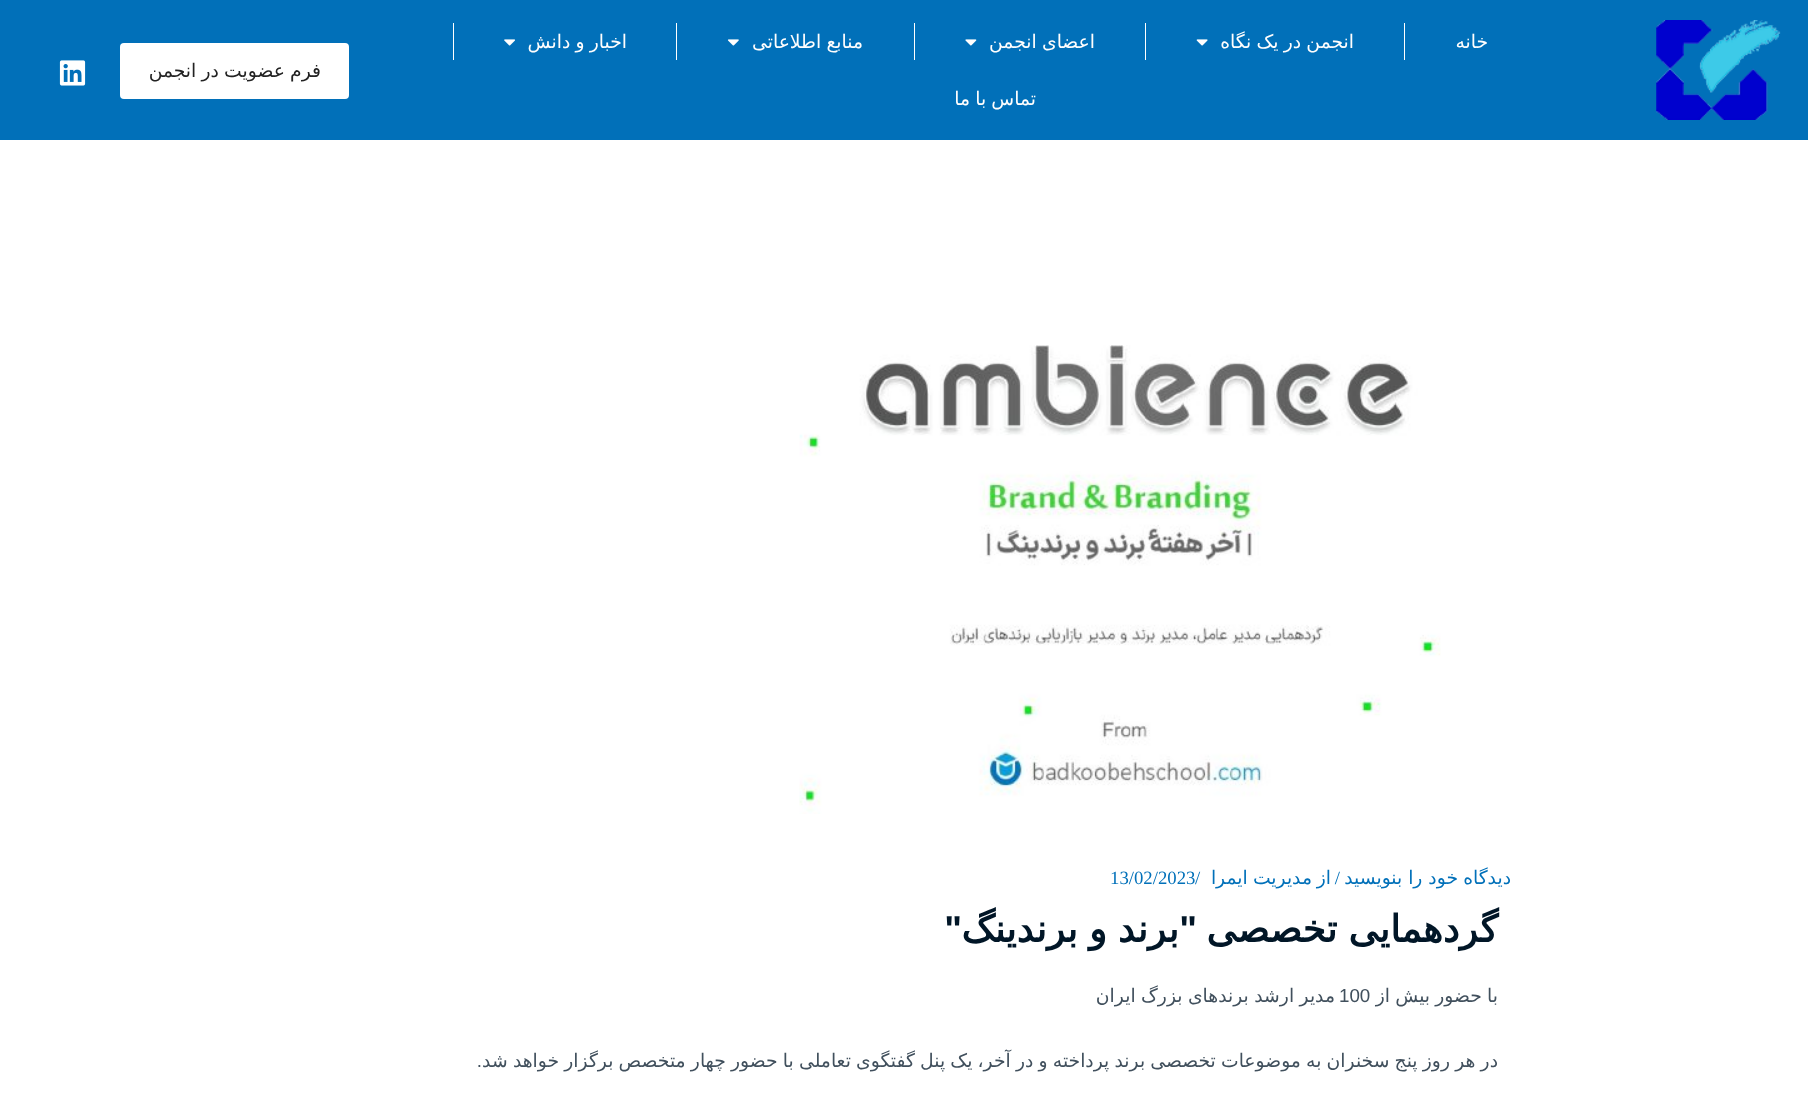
(async () => {
    const canvas = document.querySelector("canvas");
    canvas.width = 1808;
    canvas.height = 1117;
    const context = canvas.getContext("2d");
    context.miterLimit = 4;
    context.fontKerning = "normal";
    function write(s, x, y, font, color) {
        context.font = font;
        context.fillStyle = color;
        context.fillText(s, x, y);
    }
    function block(x, y, w, h, color) {
        context.fillStyle = color;
        context.fillRect(x, y, w, h);
    }
    function card(x, y, w, h, r, color) {
        context.fillStyle = color;
        context.beginPath();
        context.roundRect(x, y, w, h, r);
        context.fill();
    }
    async function photo(src, x, y, w, h) {
        const img = new Image();
        img.src = src;
        await img.decode();
        context.drawImage(img, x, y, w, h);
    }

    block(0, 0, 1808, 1117, "rgb(255, 255, 255)");
    block(0, 0, 1808, 140, "rgb(1, 112, 185)");
    await photo("media/1.png", 1656, 20, 125, 100);
    context.direction = "rtl";
    write("خانه", 1488, 48, "18.75px DejaVu Sans", "rgb(255, 254, 254)");
    block(1404, 23, 1, 37, "rgb(255, 255, 255)");
    context.wordSpacing = "-0.75px";
    write("انجمن در یک نگاه", 1354, 48, "18.75px DejaVu Sans", "rgb(255, 254, 254)");
    await photo("media/2.png", 1196, 39, 12, 7);
    block(1145, 23, 1, 37, "rgb(255, 255, 255)");
    write("اعضای انجمن", 1095, 48, "18.75px DejaVu Sans", "rgb(255, 254, 254)");
    await photo("media/3.png", 965, 39, 12, 7);
    block(914, 23, 1, 37, "rgb(255, 255, 255)");
    write("منابع اطلاعاتی", 863, 48, "18.75px DejaVu Sans", "rgb(255, 254, 254)");
    await photo("media/4.png", 727, 39, 12, 7);
    block(676, 23, 1, 37, "rgb(255, 255, 255)");
    write("اخبار و دانش", 627, 48, "18.75px DejaVu Sans", "rgb(255, 254, 254)");
    await photo("media/5.png", 504, 39, 11, 7);
    block(453, 23, 1, 37, "rgb(255, 255, 255)");
    write("تماس با ما", 1036, 105, "18.75px DejaVu Sans", "rgb(255, 254, 254)");
    card(120, 43, 229, 56, 4, "rgb(255, 255, 255)");
    write("فرم عضویت در انجمن", 321, 77, "18.75px DejaVu Sans", "rgb(34, 34, 34)");
    await photo("media/6.png", 59, 60, 27, 26);
    await photo("media/7.png", 799, 345, 642, 469);
    context.wordSpacing = "0px";
    write("دیدگاه", 1511, 884, "18.75px DejaVu Sans", "rgb(1, 112, 185)");
    write("خود را بنویسید", 1458, 884, "18.75px DejaVu Sans", "rgb(1, 112, 185)");
    write("/", 1340, 884, "18.75px Liberation Serif", "rgb(1, 112, 185)");
    write("از", 1331, 884, "18.75px DejaVu Sans", "rgb(1, 112, 185)");
    context.wordSpacing = "-0.75px";
    write("مدیریت ایمرا", 1312, 884, "18.75px DejaVu Sans", "rgb(1, 112, 185)");
    context.wordSpacing = "0px";
    context.direction = "ltr";
    write("/", 1195, 884, "18.75px Liberation Serif", "rgb(1, 112, 185)");
    write("13/02/2023", 1110, 884, "18.75px Liberation Serif", "rgb(1, 112, 185)");
    context.wordSpacing = "-1px";
    context.direction = "rtl";
    write("گردهمایی تخصصی", 1498, 942, "bold 37.5px DejaVu Sans", "rgb(1, 22, 39)");
    context.wordSpacing = "0px";
    write("\"", 1197, 942, "bold 37.5px Liberation Sans", "rgb(1, 22, 39)");
    context.wordSpacing = "-1px";
    write("برند و برندینگ", 1179, 942, "bold 37.5px DejaVu Sans", "rgb(1, 22, 39)");
    context.wordSpacing = "0px";
    write("\"", 962, 942, "bold 37.5px Liberation Sans", "rgb(1, 22, 39)");
    context.wordSpacing = "-0.75px";
    write("با حضور بیش از", 1498, 1002, "18.75px DejaVu Sans", "rgb(65, 80, 93)");
    context.wordSpacing = "0px";
    context.direction = "ltr";
    write("100", 1339, 1002, "18.75px Liberation Sans", "rgb(65, 80, 93)");
    context.wordSpacing = "-0.5px";
    context.direction = "rtl";
    write("مدیر ارشد برندهای بزرگ ایران", 1335, 1002, "18.75px DejaVu Sans", "rgb(65, 80, 93)");
    context.wordSpacing = "-0.75px";
    write("در هر روز پنج سخنران به موضوعات تخصصی برند پرداخته و در آخر، یک پنل گفتگوی تعاملی با حضور چهار متخصص برگزار خواهد شد", 1498, 1067, "18.75px DejaVu Sans", "rgb(65, 80, 93)");
    context.wordSpacing = "0px";
    write(".", 482, 1067, "18.75px Liberation Sans", "rgb(65, 80, 93)");
})();
